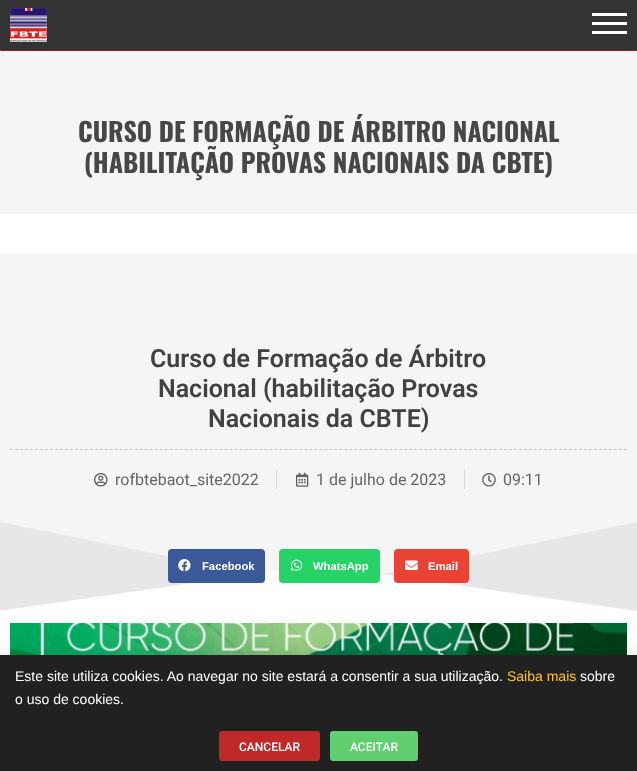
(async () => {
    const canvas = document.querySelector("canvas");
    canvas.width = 637;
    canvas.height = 771;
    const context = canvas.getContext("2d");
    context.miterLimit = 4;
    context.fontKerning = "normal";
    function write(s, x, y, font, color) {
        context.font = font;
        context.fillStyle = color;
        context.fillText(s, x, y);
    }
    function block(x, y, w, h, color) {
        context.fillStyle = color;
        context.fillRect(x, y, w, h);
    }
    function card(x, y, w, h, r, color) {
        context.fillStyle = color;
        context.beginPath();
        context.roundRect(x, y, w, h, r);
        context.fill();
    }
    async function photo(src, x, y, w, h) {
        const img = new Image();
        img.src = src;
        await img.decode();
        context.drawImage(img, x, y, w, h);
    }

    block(0, 0, 637, 771, "rgb(255, 255, 255)");
    card(0, 50, 637, 1, 0.5, "rgb(153, 27, 21)");
    block(0, 0, 637, 50, "rgb(51, 51, 51)");
    await photo("media/1.png", 10, 8, 37, 34);
    block(592, 22, 35, 3, "rgb(255, 255, 255)");
    block(592, 13, 35, 3, "rgb(255, 255, 255)");
    block(592, 31, 35, 3, "rgb(255, 255, 255)");
    block(0, 51, 637, 163, "rgb(245, 245, 245)");
    write("CURSO DE FORMAÇÃO DE ÁRBITRO NACIONAL", 78, 142, "bold 26px Oswald", "rgb(71, 71, 71)");
    write("(HABILITAÇÃO PROVAS NACIONAIS DA CBTE)", 84, 173, "bold 26px Oswald", "rgb(71, 71, 71)");
    block(0, 254, 637, 264, "rgb(245, 245, 245)");
    context.beginPath();
    context.moveTo(10, 449.5);
    context.lineTo(627, 449.5);
    context.strokeStyle = "rgb(198, 198, 198)";
    context.setLineDash([3, 1.99]);
    context.stroke();
    write("Curso de Formação de Árbitro", 150, 367, "600 25px Roboto", "rgb(65, 65, 65)");
    write("Nacional (habilitação Provas", 158, 397, "600 25px Roboto", "rgb(65, 65, 65)");
    write("Nacionais da CBTE)", 208, 427, "600 25px Roboto", "rgb(65, 65, 65)");
    await photo("media/2.png", 94, 473, 14, 14);
    write("rofbtebaot_site2022", 115, 485, "16px Roboto", "rgb(101, 101, 101)");
    block(276, 470, 1, 19, "rgb(216, 216, 216)");
    await photo("media/3.png", 296, 472, 13, 15);
    write("1 de julho de 2023", 316, 485, "16px Roboto", "rgb(101, 101, 101)");
    block(464, 470, 1, 19, "rgb(216, 216, 216)");
    await photo("media/4.png", 482, 473, 14, 14);
    write("09:11", 503, 485, "16px Roboto", "rgb(101, 101, 101)");
    block(0, 522, 637, 89, "rgb(231, 231, 231)");
    context.fillStyle = "rgb(245, 245, 245)";
    context.beginPath();
    context.moveTo(319, 587);
    context.lineTo(0, 522);
    context.lineTo(0, 518);
    context.lineTo(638, 518);
    context.lineTo(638, 522);
    context.closePath();
    context.fill();
    context.fillStyle = "rgb(255, 255, 255)";
    context.beginPath();
    context.moveTo(318, 565);
    context.lineTo(637, 611);
    context.lineTo(637, 614);
    context.lineTo(-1, 614);
    context.lineTo(-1, 611);
    context.closePath();
    context.fill();
    card(168, 549, 97, 34, 4, "rgb(59, 89, 152)");
    await photo("media/5.png", 178, 559, 13, 13);
    write("Facebook", 202, 570, "bold 11.25px Liberation Sans", "rgb(255, 255, 255)");
    card(279, 549, 101, 34, 4, "rgb(37, 211, 102)");
    await photo("media/6.png", 291, 559, 12, 12);
    write("WhatsApp", 313, 570, "bold 11.25px Liberation Sans", "rgb(255, 255, 255)");
    card(394, 549, 75, 34, 4, "rgb(234, 67, 53)");
    await photo("media/7.png", 405, 560, 13, 10);
    write("Email", 428, 570, "bold 11.25px Liberation Sans", "rgb(255, 255, 255)");
    await photo("media/8.png", 10, 623, 617, 32);
    context.fillStyle = "rgba(0, 0, 0, 0.2)";
    context.filter = "blur(11.5px)";
    context.beginPath();
    context.rect(-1, 660, 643, 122);
    context.fill();
    context.filter = "none";
    block(0, 655, 637, 116, "rgb(33, 33, 33)");
    write("Este site utiliza cookies. Ao navegar no site estará a consentir a sua utilização.", 15, 681, "14px Liberation Sans", "rgb(255, 255, 255)");
    write("Saiba mais", 507, 681, "14px Liberation Sans", "rgb(254, 199, 38)");
    write("sobre", 580, 681, "14px Liberation Sans", "rgb(255, 255, 255)");
    write("o uso de cookies.", 15, 704, "14px Liberation Sans", "rgb(255, 255, 255)");
    card(219, 731, 101, 30, 3, "rgb(191, 41, 41)");
    write("CANCELAR", 239, 751, "500 12px Roboto", "rgb(255, 255, 255)");
    card(330, 731, 88, 30, 3, "rgb(97, 206, 112)");
    write("ACEITAR", 350, 751, "500 12px Roboto", "rgb(255, 255, 255)");
})();
